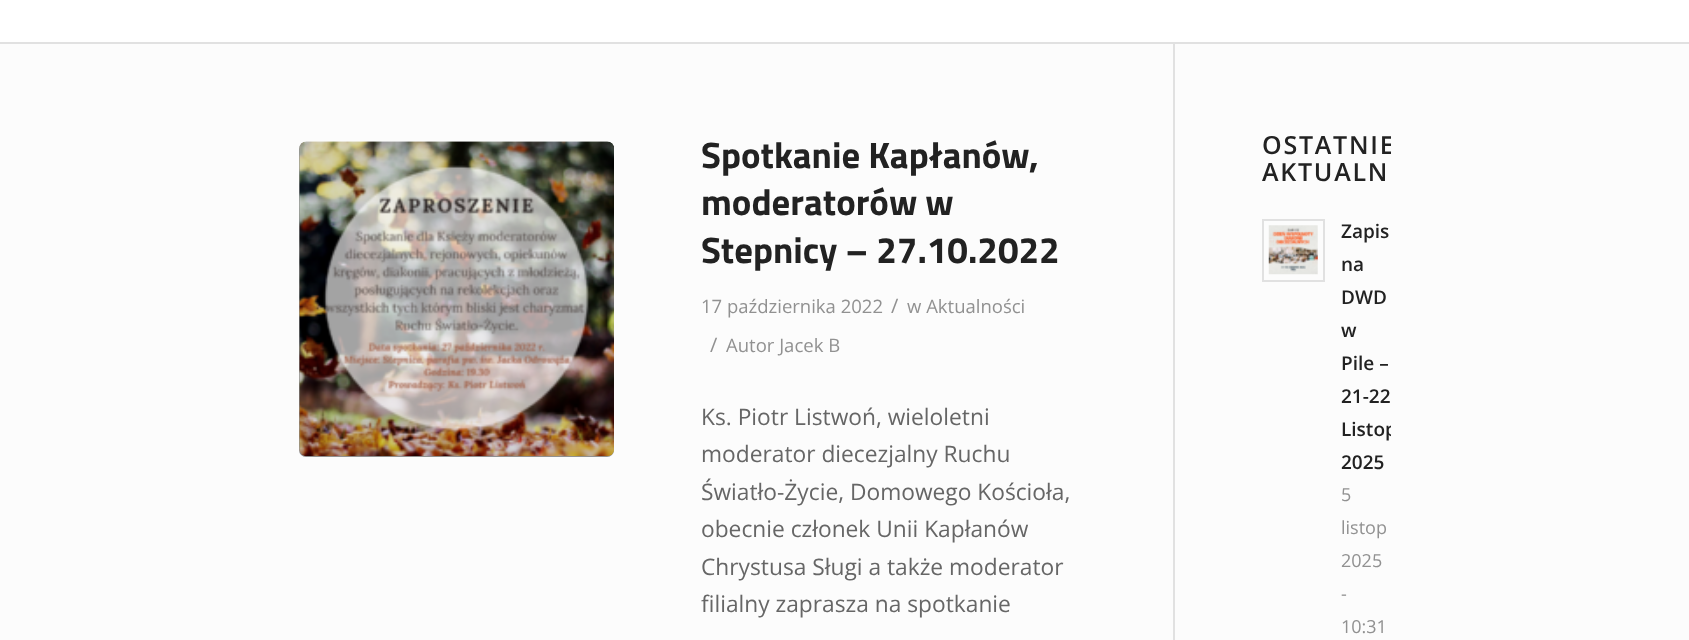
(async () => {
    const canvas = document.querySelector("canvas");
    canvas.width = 1689;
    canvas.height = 640;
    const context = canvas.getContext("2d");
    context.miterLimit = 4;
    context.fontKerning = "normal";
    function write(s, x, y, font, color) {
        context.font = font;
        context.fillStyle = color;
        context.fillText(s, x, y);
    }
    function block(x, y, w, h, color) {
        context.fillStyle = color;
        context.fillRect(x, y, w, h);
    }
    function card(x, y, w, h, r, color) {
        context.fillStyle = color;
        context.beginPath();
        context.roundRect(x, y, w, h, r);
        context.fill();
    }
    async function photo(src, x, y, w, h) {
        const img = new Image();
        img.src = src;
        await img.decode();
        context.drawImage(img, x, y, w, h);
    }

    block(0, 0, 1689, 640, "rgb(255, 255, 255)");
    block(0, 44, 1689, 596, "rgb(252, 252, 252)");
    block(0, 42, 1689, 2, "rgb(225, 225, 225)");
    block(1173, 44, 2, 596, "rgb(225, 225, 225)");
    card(299, 142, 315, 315, 7, "rgb(145, 145, 145)");
    await photo("media/1.png", 299, 141, 315, 315);
    write("Spotkanie Kapłanów,", 701, 168, "bold 36.75px Titillium Web", "rgb(34, 34, 34)");
    write("moderatorów w", 701, 215, "bold 36.75px Titillium Web", "rgb(34, 34, 34)");
    write("Stepnicy – 27.10.2022", 701, 263, "bold 36.75px Titillium Web", "rgb(34, 34, 34)");
    write("17 października 2022", 701, 313, "18.5px Open Sans", "rgb(145, 145, 145)");
    write("/", 891, 313, "20px Open Sans", "rgb(145, 145, 145)");
    write("w Aktualności", 907, 313, "18.5px Open Sans", "rgb(145, 145, 145)");
    write("/", 710, 352, "20px Open Sans", "rgb(145, 145, 145)");
    write("Autor Jacek B", 726, 352, "18.5px Open Sans", "rgb(145, 145, 145)");
    write("Ks. Piotr Listwoń, wieloletni", 701, 425, "22.75px Open Sans", "rgb(102, 102, 102)");
    write("moderator diecezjalny Ruchu", 701, 462, "22.75px Open Sans", "rgb(102, 102, 102)");
    write("Światło-Życie, Domowego Kościoła,", 701, 500, "22.75px Open Sans", "rgb(102, 102, 102)");
    write("obecnie członek Unii Kapłanów", 701, 537, "22.75px Open Sans", "rgb(102, 102, 102)");
    write("Chrystusa Sługi a także moderator", 701, 575, "22.75px Open Sans", "rgb(102, 102, 102)");
    write("filialny zaprasza na spotkanie", 701, 612, "22.75px Open Sans", "rgb(102, 102, 102)");
    context.save();
    context.beginPath();
    context.rect(1174, 44, 217, 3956);
    context.clip();
    context.letterSpacing = "1.75px";
    write("OSTATNIE", 1262, 154, "600 25px Open Sans", "rgb(34, 34, 34)");
    context.restore();
    context.letterSpacing = "1.75px";
    write("AKTUALN", 1262, 181, "600 25px Open Sans", "rgb(34, 34, 34)");
    context.strokeStyle = "rgb(225, 225, 225)";
    context.lineWidth = 2;
    context.strokeRect(1263, 220, 61, 61);
    await photo("media/2.png", 1268, 225, 50, 50);
    context.letterSpacing = "0px";
    write("Zapis", 1341, 238, "600 19px Open Sans", "rgb(34, 34, 34)");
    write("na", 1341, 271, "600 19px Open Sans", "rgb(34, 34, 34)");
    write("DWD", 1341, 304, "600 19px Open Sans", "rgb(34, 34, 34)");
    write("w", 1341, 337, "600 19px Open Sans", "rgb(34, 34, 34)");
    write("Pile –", 1341, 370, "600 19px Open Sans", "rgb(34, 34, 34)");
    write("21-22", 1341, 403, "600 19px Open Sans", "rgb(34, 34, 34)");
    context.save();
    context.beginPath();
    context.rect(1341, 215, 50, 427);
    context.clip();
    write("Listop", 1341, 436, "600 19px Open Sans", "rgb(34, 34, 34)");
    context.restore();
    write("2025", 1341, 469, "600 19px Open Sans", "rgb(34, 34, 34)");
    write("5", 1341, 501, "18px Open Sans", "rgb(145, 145, 145)");
    write("listop", 1341, 534, "18px Open Sans", "rgb(145, 145, 145)");
    write("2025", 1341, 567, "18px Open Sans", "rgb(145, 145, 145)");
    write("-", 1341, 600, "18px Open Sans", "rgb(145, 145, 145)");
    write("10:31", 1341, 633, "18px Open Sans", "rgb(145, 145, 145)");
})();
